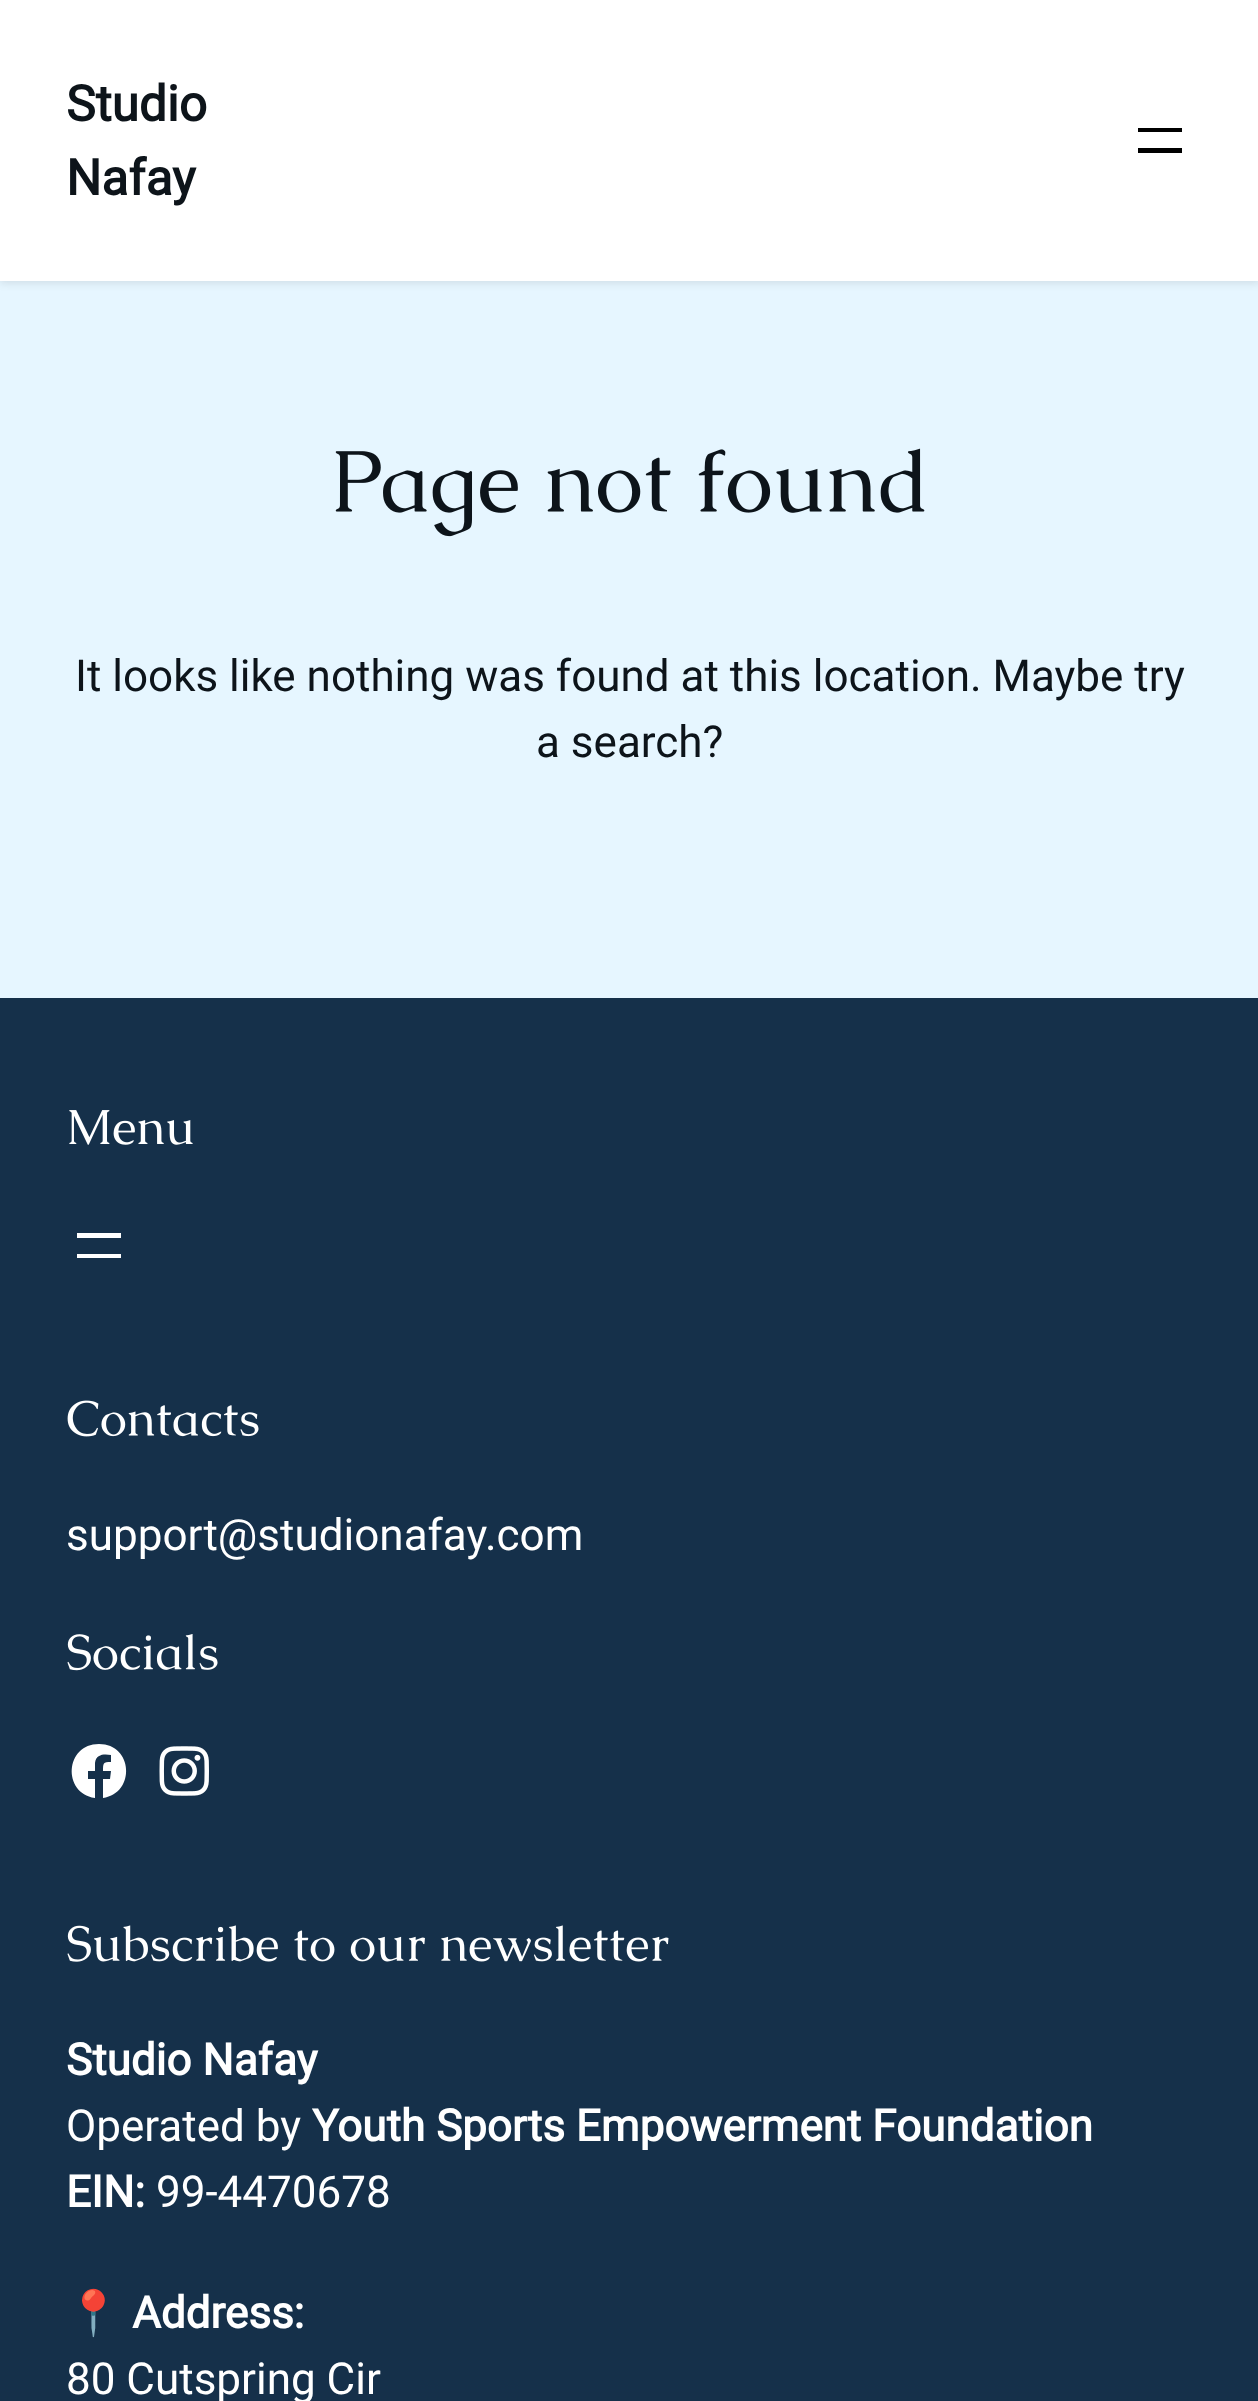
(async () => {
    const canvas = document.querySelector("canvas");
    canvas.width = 1258;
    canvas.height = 2401;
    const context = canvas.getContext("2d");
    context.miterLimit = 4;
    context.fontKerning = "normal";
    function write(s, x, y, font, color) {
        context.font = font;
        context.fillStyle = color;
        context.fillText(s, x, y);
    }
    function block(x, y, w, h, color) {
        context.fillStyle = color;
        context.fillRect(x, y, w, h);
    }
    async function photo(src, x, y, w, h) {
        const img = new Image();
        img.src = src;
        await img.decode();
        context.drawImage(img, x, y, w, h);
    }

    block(0, 0, 1258, 2401, "rgb(230, 246, 255)");
    context.fillStyle = "rgba(0, 0, 0, 0.1)";
    context.filter = "blur(4px)";
    context.beginPath();
    context.rect(0, 3, 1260, 280);
    context.fill();
    context.filter = "none";
    block(0, 0, 1258, 281, "rgb(255, 255, 255)");
    write("Studio", 66, 121, "bold 49.5px Roboto", "rgb(13, 20, 26)");
    write("Nafay", 66, 195, "bold 49.5px Roboto", "rgb(13, 20, 26)");
    block(1138, 128, 44, 4, "rgb(0, 0, 0)");
    block(1138, 148, 44, 5, "rgb(0, 0, 0)");
    await photo("media/1.png", 335, 448, 590, 89);
    write("It looks like nothing was found at this location. Maybe try", 75, 691, "44px Roboto", "rgb(13, 20, 26)");
    write("a search?", 536, 757, "44px Roboto", "rgb(13, 20, 26)");
    block(0, 998, 1258, 1403, "rgb(21, 48, 74)");
    await photo("media/2.png", 69, 1110, 124, 35);
    block(77, 1233, 44, 5, "rgb(255, 255, 255)");
    block(77, 1254, 44, 4, "rgb(255, 255, 255)");
    await photo("media/3.png", 67, 1400, 192, 37);
    write("support@studionafay.com", 66, 1550, "44px Roboto", "rgb(255, 255, 255)");
    await photo("media/4.png", 67, 1634, 151, 37);
    context.beginPath();
    context.moveTo(99, 1744);
    context.bezierCurveTo(65, 1744, 62, 1793, 95, 1798);
    context.lineTo(95, 1779);
    context.lineTo(88, 1779);
    context.lineTo(88, 1771);
    context.lineTo(95, 1771);
    context.lineTo(95, 1763);
    context.bezierCurveTo(96, 1754, 104, 1754, 111, 1755);
    context.lineTo(111, 1762);
    context.bezierCurveTo(103, 1762, 103, 1763, 103, 1771);
    context.lineTo(111, 1771);
    context.lineTo(110, 1779);
    context.lineTo(103, 1779);
    context.lineTo(103, 1798);
    context.bezierCurveTo(136, 1793, 133, 1744, 99, 1744);
    context.closePath();
    context.fill();
    await photo("media/5.png", 159, 1746, 50, 50);
    await photo("media/6.png", 67, 1925, 602, 37);
    write("Studio Nafay", 66, 2075, "bold 44px Roboto", "rgb(255, 255, 255)");
    write("Operated by", 66, 2141, "44px Roboto", "rgb(255, 255, 255)");
    write("Youth Sports Empowerment Foundation", 312, 2141, "bold 44px Roboto", "rgb(255, 255, 255)");
    write("EIN:", 66, 2207, "bold 44px Roboto", "rgb(255, 255, 255)");
    write("99-4470678", 156, 2207, "44px Roboto", "rgb(255, 255, 255)");
    write("📍", 66, 2328, "44px Noto Color Emoji", "rgb(255, 255, 255)");
    write("Address:", 132, 2328, "bold 44px Roboto", "rgb(255, 255, 255)");
    write("80 Cutspring Cir", 66, 2394, "44px Roboto", "rgb(255, 255, 255)");
})();
